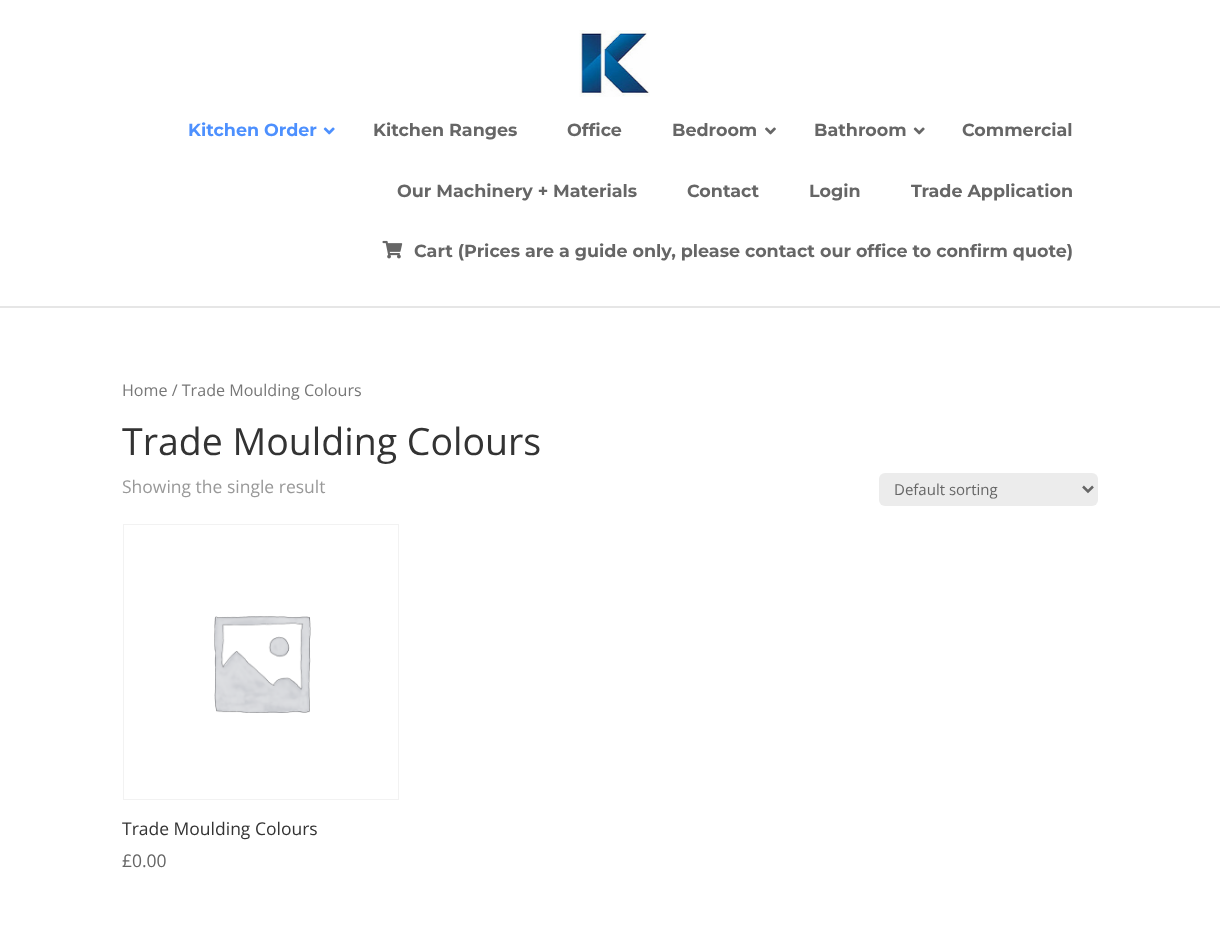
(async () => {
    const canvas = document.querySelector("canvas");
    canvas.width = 1220;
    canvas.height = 932;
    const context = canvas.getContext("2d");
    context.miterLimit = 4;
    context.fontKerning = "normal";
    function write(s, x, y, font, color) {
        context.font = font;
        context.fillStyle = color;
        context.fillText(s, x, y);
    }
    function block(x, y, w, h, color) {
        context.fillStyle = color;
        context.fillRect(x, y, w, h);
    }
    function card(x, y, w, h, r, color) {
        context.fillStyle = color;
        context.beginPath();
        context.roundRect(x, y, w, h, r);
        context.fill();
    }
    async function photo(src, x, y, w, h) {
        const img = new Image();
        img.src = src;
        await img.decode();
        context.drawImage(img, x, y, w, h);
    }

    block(0, 0, 1220, 932, "rgb(255, 255, 255)");
    block(0, 306, 1220, 2, "rgb(230, 230, 230)");
    await photo("media/1.png", 579, 30, 71, 67);
    write("Kitchen Order", 188, 136, "bold 17.5px Montserrat", "rgb(77, 144, 254)");
    await photo("media/2.png", 323, 127, 12, 8);
    write("Kitchen Ranges", 373, 136, "bold 17.5px Montserrat", "rgb(102, 102, 102)");
    write("Office", 567, 136, "bold 17.5px Montserrat", "rgb(102, 102, 102)");
    write("Bedroom", 672, 136, "bold 17.5px Montserrat", "rgb(102, 102, 102)");
    await photo("media/3.png", 765, 127, 11, 8);
    write("Bathroom", 814, 136, "bold 17.5px Montserrat", "rgb(102, 102, 102)");
    await photo("media/4.png", 913, 127, 12, 8);
    write("Commercial", 962, 136, "bold 17.5px Montserrat", "rgb(102, 102, 102)");
    write("Our Machinery + Materials", 397, 197, "bold 17.5px Montserrat", "rgb(102, 102, 102)");
    write("Contact", 687, 197, "bold 17.5px Montserrat", "rgb(102, 102, 102)");
    write("Login", 809, 197, "bold 17.5px Montserrat", "rgb(102, 102, 102)");
    write("Trade Application", 911, 197, "bold 17.5px Montserrat", "rgb(102, 102, 102)");
    await photo("media/5.png", 382, 240, 21, 19);
    write("Cart (Prices are a guide only, please contact our office to confirm quote)", 414, 257, "bold 17.5px Montserrat", "rgb(102, 102, 102)");
    write("Home / Trade Moulding Colours", 122, 396, "16.1px Open Sans", "rgb(119, 119, 119)");
    write("Trade Moulding Colours", 122, 455, "37.5px Open Sans", "rgb(51, 51, 51)");
    write("Showing the single result", 122, 493, "17.5px Open Sans", "rgb(153, 153, 153)");
    card(879, 473, 219, 33, 6, "rgb(236, 236, 236)");
    context.beginPath();
    context.moveTo(1083, 486.5);
    context.lineTo(1088, 491.5);
    context.lineTo(1093, 486.5);
    context.strokeStyle = "rgb(102, 102, 102)";
    context.lineWidth = 2.5;
    context.stroke();
    write("Default sorting", 894, 495, "15px Open Sans", "rgb(102, 102, 102)");
    context.strokeStyle = "rgb(242, 242, 242)";
    context.lineWidth = 1;
    context.strokeRect(123.5, 524.5, 275, 275);
    await photo("media/6.png", 214, 616, 97, 97);
    write("Trade Moulding Colours", 122, 835, "17.5px Open Sans", "rgb(51, 51, 51)");
    write("£0.00", 122, 867, "17.5px Open Sans", "rgb(102, 102, 102)");
})();
